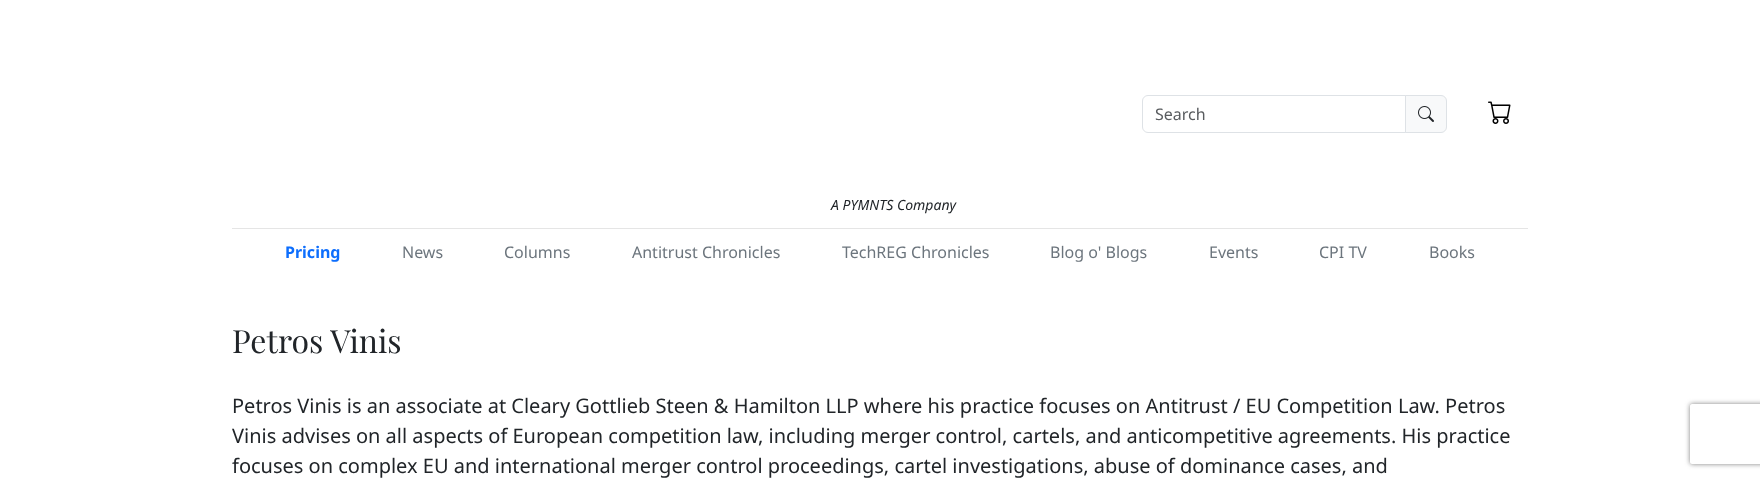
(async () => {
    const canvas = document.querySelector("canvas");
    canvas.width = 1760;
    canvas.height = 478;
    const context = canvas.getContext("2d");
    context.miterLimit = 4;
    context.fontKerning = "normal";
    function write(s, x, y, font, color) {
        context.font = font;
        context.fillStyle = color;
        context.fillText(s, x, y);
    }
    function block(x, y, w, h, color) {
        context.fillStyle = color;
        context.fillRect(x, y, w, h);
    }
    async function photo(src, x, y, w, h) {
        const img = new Image();
        img.src = src;
        await img.decode();
        context.drawImage(img, x, y, w, h);
    }

    block(0, 0, 1760, 478, "rgb(255, 255, 255)");
    block(232, 228, 1296, 1, "rgb(229, 229, 229)");
    context.fillStyle = "rgb(248, 249, 250)";
    context.beginPath();
    context.roundRect(1405.5, 95.5, 41, 37, [0, 5.5, 5.5, 0]);
    context.fill();
    context.strokeStyle = "rgb(222, 226, 230)";
    context.stroke();
    context.beginPath();
    context.roundRect(1142.5, 95.5, 263, 37, [5.5, 0, 0, 5.5]);
    context.stroke();
    write("Search", 1155, 120, "16px Noto Sans", "rgb(89, 92, 95)");
    await photo("media/1.png", 1418, 106, 16, 16);
    await photo("media/2.png", 1488, 101, 23, 23);
    write("A PYMNTS Company", 831, 210, "italic 14px Noto Sans", "rgb(33, 37, 41)");
    write("Pricing", 285, 258, "bold 16px Noto Sans", "rgb(13, 110, 253)");
    write("News", 402, 258, "16px Noto Sans", "rgb(108, 117, 125)");
    write("Columns", 504, 258, "16px Noto Sans", "rgb(108, 117, 125)");
    write("Antitrust Chronicles", 632, 258, "16px Noto Sans", "rgb(108, 117, 125)");
    write("TechREG Chronicles", 842, 258, "16px Noto Sans", "rgb(108, 117, 125)");
    write("Blog o' Blogs", 1050, 258, "16px Noto Sans", "rgb(108, 117, 125)");
    write("Events", 1209, 258, "16px Noto Sans", "rgb(108, 117, 125)");
    write("CPI TV", 1319, 258, "16px Noto Sans", "rgb(108, 117, 125)");
    write("Books", 1429, 258, "16px Noto Sans", "rgb(108, 117, 125)");
    write("Petros Vinis", 232, 353, "32px Playfair Display", "rgb(33, 37, 41)");
    write("Petros Vinis is an associate at Cleary Gottlieb Steen & Hamilton LLP where his practice focuses on Antitrust / EU Competition Law. Petros", 232, 413, "20px Noto Sans", "rgb(33, 37, 41)");
    write("Vinis advises on all aspects of European competition law, including merger control, cartels, and anticompetitive agreements. His practice", 232, 443, "20px Noto Sans", "rgb(33, 37, 41)");
    write("focuses on complex EU and international merger control proceedings, cartel investigations, abuse of dominance cases, and", 232, 473, "20px Noto Sans", "rgb(33, 37, 41)");
    context.save();
    context.beginPath();
    context.moveTo(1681, 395);
    context.lineTo(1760, 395);
    context.lineTo(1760, 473);
    context.lineTo(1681, 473);
    context.closePath();
    context.moveTo(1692, 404);
    context.lineTo(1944, 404);
    context.bezierCurveTo(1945, 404, 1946, 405, 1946, 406);
    context.lineTo(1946, 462);
    context.bezierCurveTo(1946, 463, 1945, 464, 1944, 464);
    context.lineTo(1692, 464);
    context.bezierCurveTo(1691, 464, 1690, 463, 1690, 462);
    context.lineTo(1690, 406);
    context.bezierCurveTo(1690, 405, 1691, 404, 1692, 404);
    context.closePath();
    context.clip("evenodd");
    context.fillStyle = "rgb(128, 128, 128)";
    context.filter = "blur(2.5px)";
    context.beginPath();
    context.roundRect(1690, 404, 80, 60, 2);
    context.fill();
    context.filter = "none";
    context.restore();
})();
